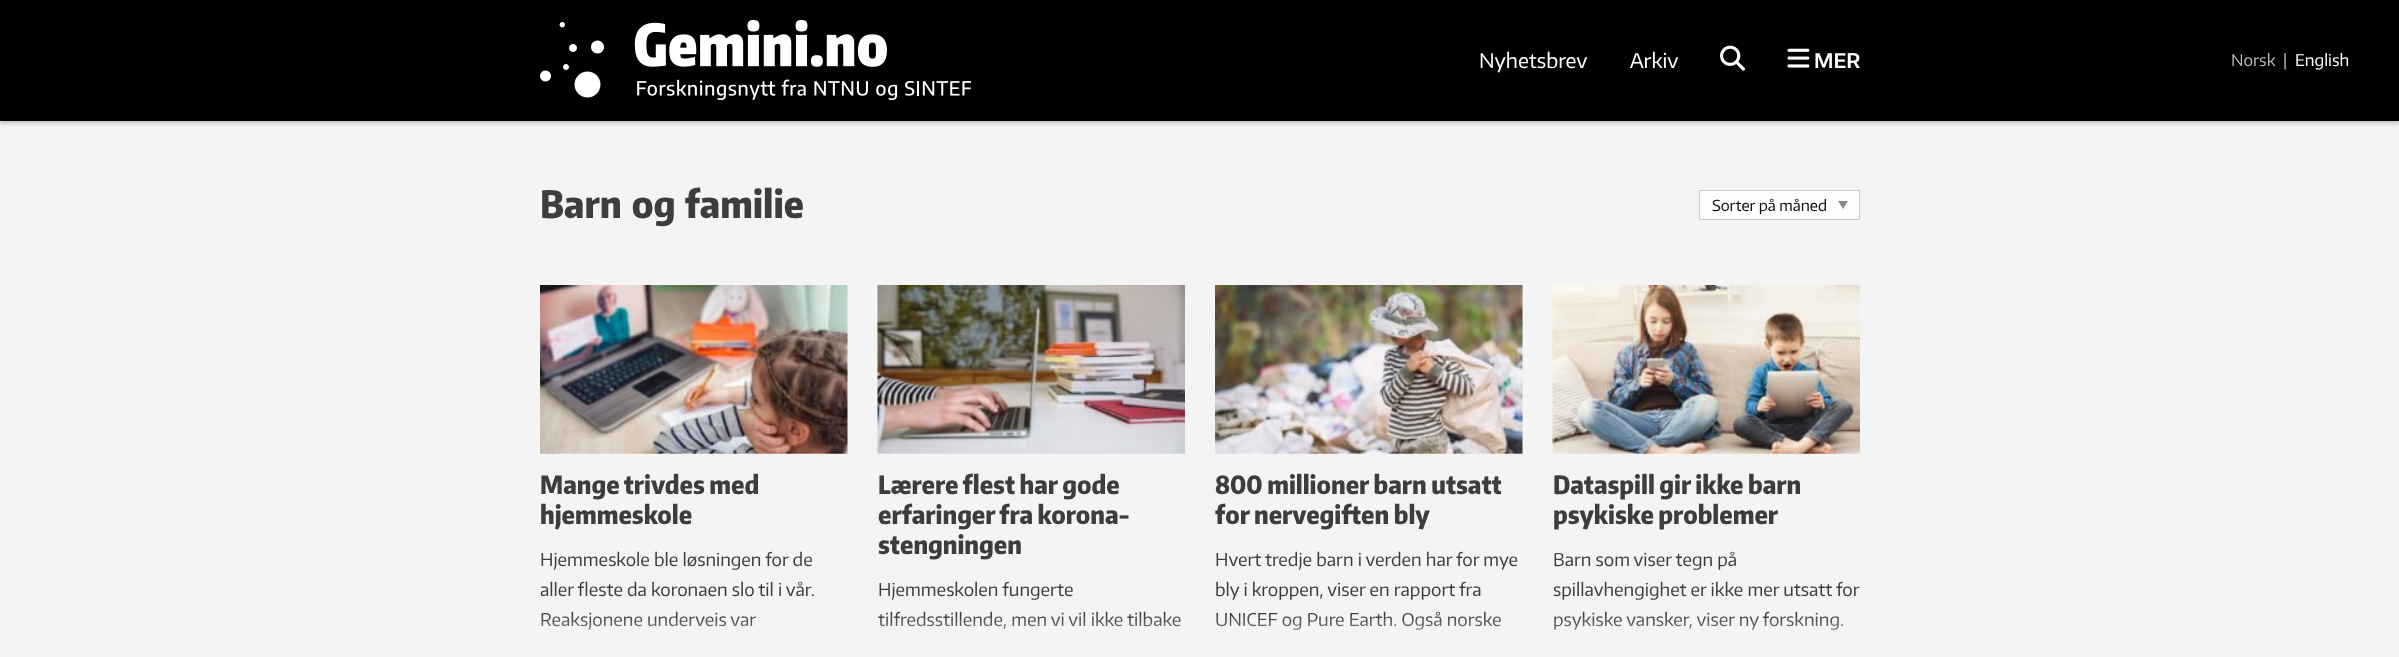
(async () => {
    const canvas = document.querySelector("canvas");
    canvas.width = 2399;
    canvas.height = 657;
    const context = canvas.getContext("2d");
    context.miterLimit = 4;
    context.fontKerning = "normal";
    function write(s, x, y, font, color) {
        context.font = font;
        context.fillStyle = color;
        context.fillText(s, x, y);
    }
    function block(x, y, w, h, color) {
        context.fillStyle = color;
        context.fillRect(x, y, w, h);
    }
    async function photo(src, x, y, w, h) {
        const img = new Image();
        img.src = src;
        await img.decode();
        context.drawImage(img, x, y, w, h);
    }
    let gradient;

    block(0, 0, 2399, 657, "rgb(244, 244, 244)");
    context.fillStyle = "rgba(0, 0, 0, 0.24)";
    context.filter = "blur(2px)";
    context.beginPath();
    context.rect(0, 1, 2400, 122);
    context.fill();
    context.filter = "none";
    block(0, 0, 2399, 121, "rgb(0, 0, 0)");
    await photo("media/1.png", 540, 20, 431, 80);
    write("Nyhetsbrev", 1479, 68, "20px Encode Sans", "rgb(255, 255, 255)");
    write("Arkiv", 1630, 68, "20px Encode Sans", "rgb(255, 255, 255)");
    await photo("media/2.png", 1720, 45, 25, 26);
    await photo("media/3.png", 1787, 48, 23, 20);
    write("MER", 1814, 68, "600 20px Encode Sans", "rgb(255, 255, 255)");
    write("Norsk", 2231, 66, "16px Encode Sans", "rgb(187, 187, 187)");
    write("|", 2283, 66, "16px Encode Sans", "rgb(187, 187, 187)");
    write("English", 2295, 66, "16px Encode Sans", "rgb(255, 255, 255)");
    context.wordSpacing = "3px";
    write("Barn og familie", 540, 218, "800 37.5px Encode Sans Condensed", "rgb(61, 61, 61)");
    block(1700, 191, 159, 28, "rgb(254, 254, 254)");
    context.fillStyle = "rgb(138, 138, 138)";
    context.beginPath();
    context.moveTo(1838, 201);
    context.lineTo(1848, 201);
    context.lineTo(1843, 209);
    context.closePath();
    context.fill();
    context.strokeStyle = "rgb(202, 202, 202)";
    context.strokeRect(1699.5, 190.5, 160, 29);
    context.wordSpacing = "0px";
    write("Sorter på måned", 1712, 211, "15px Encode Sans", "rgb(10, 10, 10)");
    await photo("media/4.png", 540, 285, 308, 169);
    write("Mange trivdes med", 540, 494, "800 25px Encode Sans Condensed", "rgb(61, 61, 61)");
    write("hjemmeskole", 540, 524, "800 25px Encode Sans Condensed", "rgb(61, 61, 61)");
    write("Hjemmeskole ble løsningen for de", 540, 566, "17.5px Encode Sans", "rgb(61, 61, 61)");
    write("aller fleste da koronaen slo til i vår.", 540, 596, "17.5px Encode Sans", "rgb(61, 61, 61)");
    write("Reaksjonene underveis var", 540, 626, "17.5px Encode Sans", "rgb(61, 61, 61)");
    gradient = context.createLinearGradient(694, 614, 694, 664);
    gradient.addColorStop(0, "rgba(244, 244, 244, 0)");
    gradient.addColorStop(1, "rgb(244, 244, 244)");
    context.fillStyle = gradient;
    context.fillRect(541, 615, 215, 15);
    await photo("media/5.png", 877, 285, 308, 169);
    write("Lærere flest har gode", 878, 494, "800 25px Encode Sans Condensed", "rgb(61, 61, 61)");
    write("erfaringer fra korona-", 878, 524, "800 25px Encode Sans Condensed", "rgb(61, 61, 61)");
    write("stengningen", 878, 554, "800 25px Encode Sans Condensed", "rgb(61, 61, 61)");
    write("Hjemmeskolen fungerte", 878, 596, "17.5px Encode Sans", "rgb(61, 61, 61)");
    write("tilfredsstillende, men vi vil ikke tilbake", 878, 626, "17.5px Encode Sans", "rgb(61, 61, 61)");
    gradient = context.createLinearGradient(1031, 614, 1031, 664);
    gradient.addColorStop(0, "rgba(244, 244, 244, 0)");
    gradient.addColorStop(1, "rgb(244, 244, 244)");
    context.fillStyle = gradient;
    context.fillRect(878, 615, 302, 14);
    await photo("media/6.png", 1215, 285, 308, 169);
    write("800 millioner barn utsatt", 1215, 494, "800 25px Encode Sans Condensed", "rgb(61, 61, 61)");
    write("for nervegiften bly", 1215, 524, "800 25px Encode Sans Condensed", "rgb(61, 61, 61)");
    write("Hvert tredje barn i verden har for mye", 1215, 566, "17.5px Encode Sans", "rgb(61, 61, 61)");
    write("bly i kroppen, viser en rapport fra", 1215, 596, "17.5px Encode Sans", "rgb(61, 61, 61)");
    write("UNICEF og Pure Earth. Også norske", 1215, 626, "17.5px Encode Sans", "rgb(61, 61, 61)");
    gradient = context.createLinearGradient(1369, 614, 1369, 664);
    gradient.addColorStop(0, "rgba(244, 244, 244, 0)");
    gradient.addColorStop(1, "rgb(244, 244, 244)");
    context.fillStyle = gradient;
    context.fillRect(1216, 615, 285, 15);
    await photo("media/7.png", 1552, 285, 308, 169);
    write("Dataspill gir ikke barn", 1553, 494, "800 25px Encode Sans Condensed", "rgb(61, 61, 61)");
    write("psykiske problemer", 1553, 524, "800 25px Encode Sans Condensed", "rgb(61, 61, 61)");
    write("Barn som viser tegn på", 1553, 566, "17.5px Encode Sans", "rgb(61, 61, 61)");
    write("spillavhengighet er ikke mer utsatt for", 1553, 596, "17.5px Encode Sans", "rgb(61, 61, 61)");
    write("psykiske vansker, viser ny forskning.", 1553, 626, "17.5px Encode Sans", "rgb(61, 61, 61)");
    gradient = context.createLinearGradient(1706, 614, 1706, 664);
    gradient.addColorStop(0, "rgba(244, 244, 244, 0)");
    gradient.addColorStop(1, "rgb(244, 244, 244)");
    context.fillStyle = gradient;
    context.fillRect(1553, 615, 290, 15);
})();
